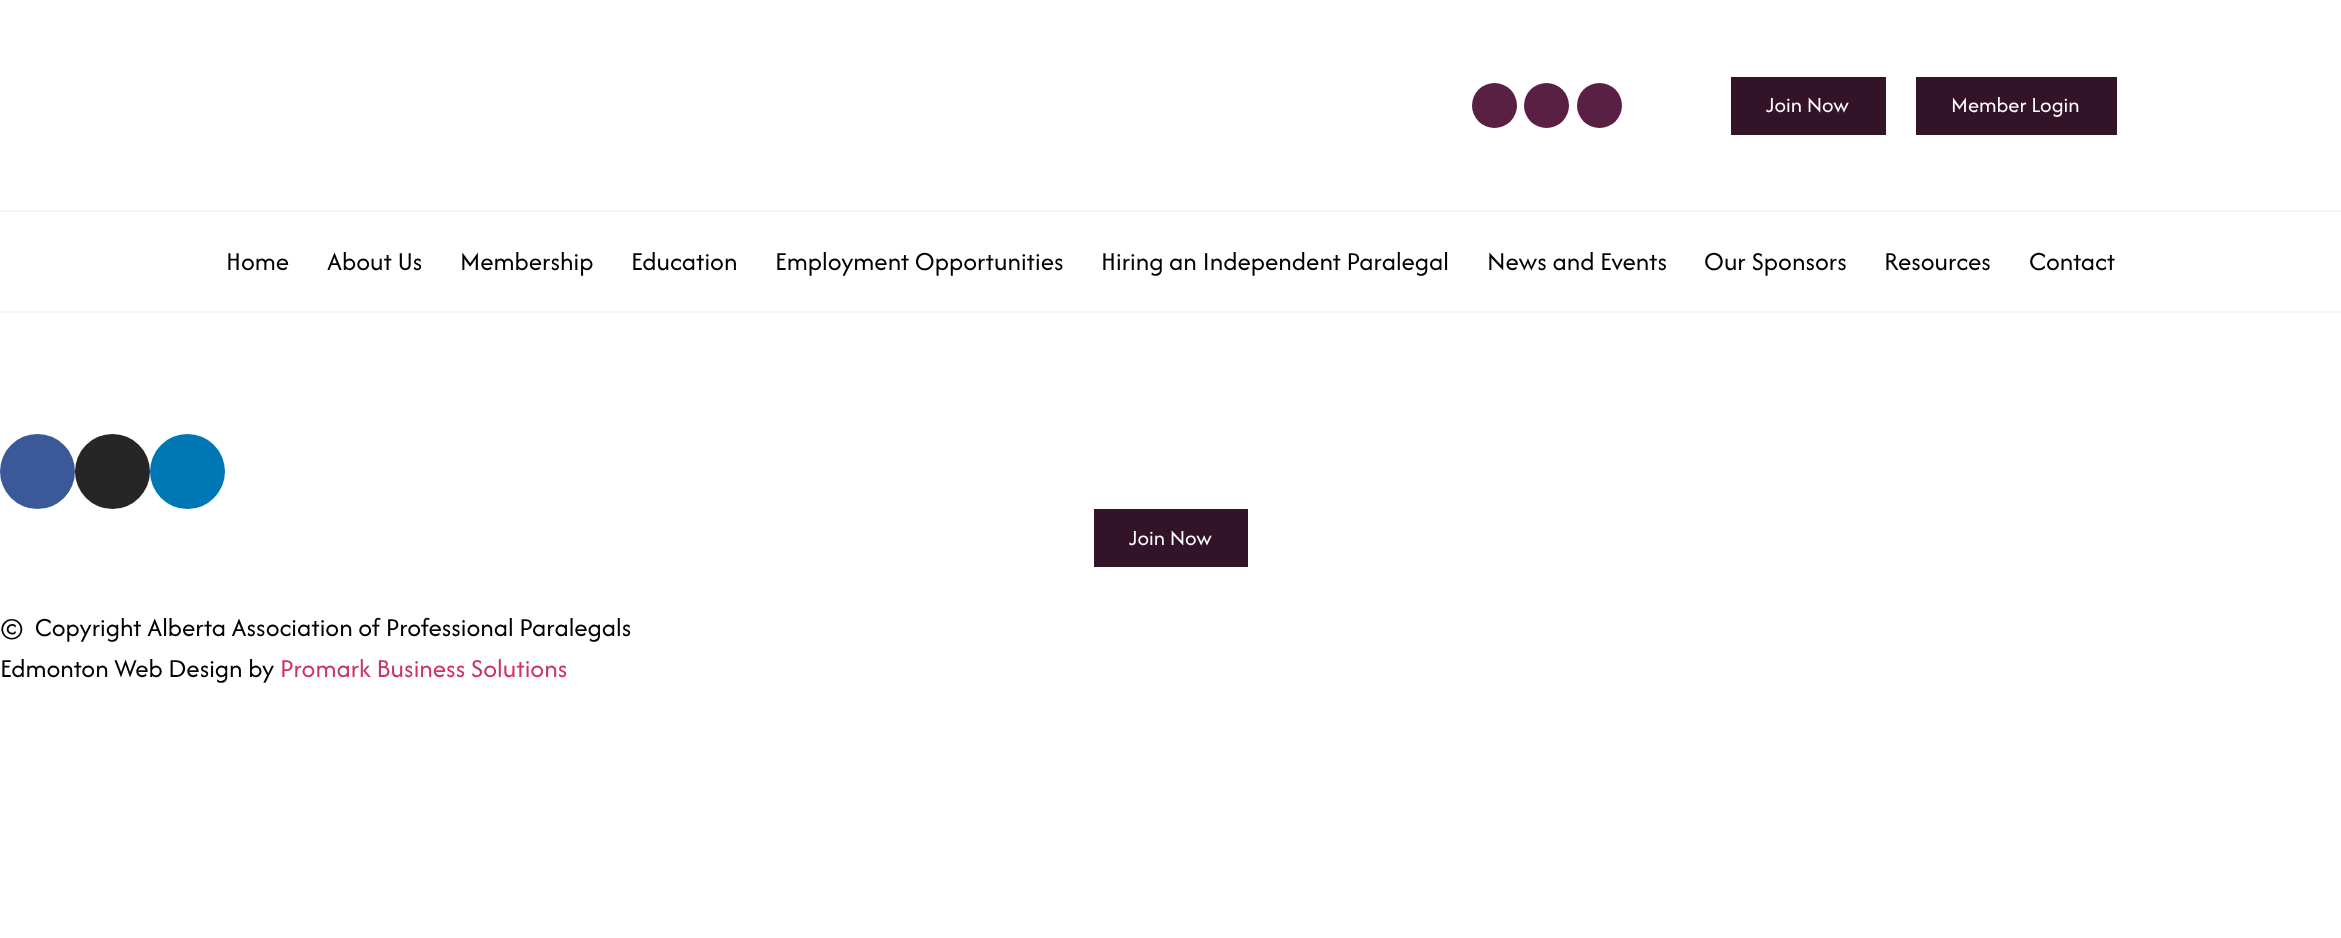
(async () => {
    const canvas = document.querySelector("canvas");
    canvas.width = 2341;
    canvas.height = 938;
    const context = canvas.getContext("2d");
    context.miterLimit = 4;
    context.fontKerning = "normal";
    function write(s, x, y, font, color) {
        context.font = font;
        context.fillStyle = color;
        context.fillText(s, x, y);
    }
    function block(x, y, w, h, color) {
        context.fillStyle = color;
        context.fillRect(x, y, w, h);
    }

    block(0, 0, 2341, 938, "rgb(255, 255, 255)");
    context.fillStyle = "rgb(90, 32, 68)";
    context.beginPath();
    context.arc(1494.5, 105.5, 22.5, 0, Math.PI * 2);
    context.fill();
    context.beginPath();
    context.arc(1546.5, 105.5, 22.5, 0, Math.PI * 2);
    context.fill();
    context.beginPath();
    context.arc(1599.5, 105.5, 22.5, 0, Math.PI * 2);
    context.fill();
    block(1731, 77, 155, 58, "rgb(51, 19, 39)");
    write("Join Now", 1766, 112, "22.5px Afacad", "rgb(255, 255, 255)");
    block(1916, 77, 201, 58, "rgb(51, 19, 39)");
    write("Member Login", 1951, 112, "22.5px Afacad", "rgb(255, 255, 255)");
    block(0, 210, 2341, 2, "rgb(246, 246, 246)");
    block(0, 311, 2341, 2, "rgb(246, 246, 246)");
    write("Home", 226, 270, "27px Afacad", "rgb(0, 0, 0)");
    write("About Us", 327, 270, "27px Afacad", "rgb(0, 0, 0)");
    write("Membership", 460, 270, "27px Afacad", "rgb(0, 0, 0)");
    write("Education", 631, 270, "27px Afacad", "rgb(0, 0, 0)");
    write("Employment Opportunities", 775, 270, "27px Afacad", "rgb(0, 0, 0)");
    write("Hiring an Independent Paralegal", 1101, 270, "27px Afacad", "rgb(0, 0, 0)");
    write("News and Events", 1487, 270, "27px Afacad", "rgb(0, 0, 0)");
    write("Our Sponsors", 1704, 270, "27px Afacad", "rgb(0, 0, 0)");
    write("Resources", 1884, 270, "27px Afacad", "rgb(0, 0, 0)");
    write("Contact", 2029, 270, "27px Afacad", "rgb(0, 0, 0)");
    context.fillStyle = "rgb(59, 89, 152)";
    context.beginPath();
    context.arc(37.5, 471.5, 37.5, 0, Math.PI * 2);
    context.fill();
    context.fillStyle = "rgb(38, 38, 38)";
    context.beginPath();
    context.arc(112.5, 471.5, 37.5, 0, Math.PI * 2);
    context.fill();
    context.fillStyle = "rgb(0, 119, 181)";
    context.beginPath();
    context.arc(187.5, 471.5, 37.5, 0, Math.PI * 2);
    context.fill();
    block(1094, 509, 154, 58, "rgb(51, 19, 39)");
    write("Join Now", 1129, 545, "22.5px Afacad", "rgb(255, 255, 255)");
    write("©  Copyright Alberta Association of Professional Paralegals", 0, 636, "27px Afacad", "rgb(0, 0, 0)");
    write("Edmonton Web Design by", 0, 677, "27px Afacad", "rgb(0, 0, 0)");
    write("Promark Business Solutions", 280, 677, "27px Afacad", "rgb(204, 51, 102)");
})();
